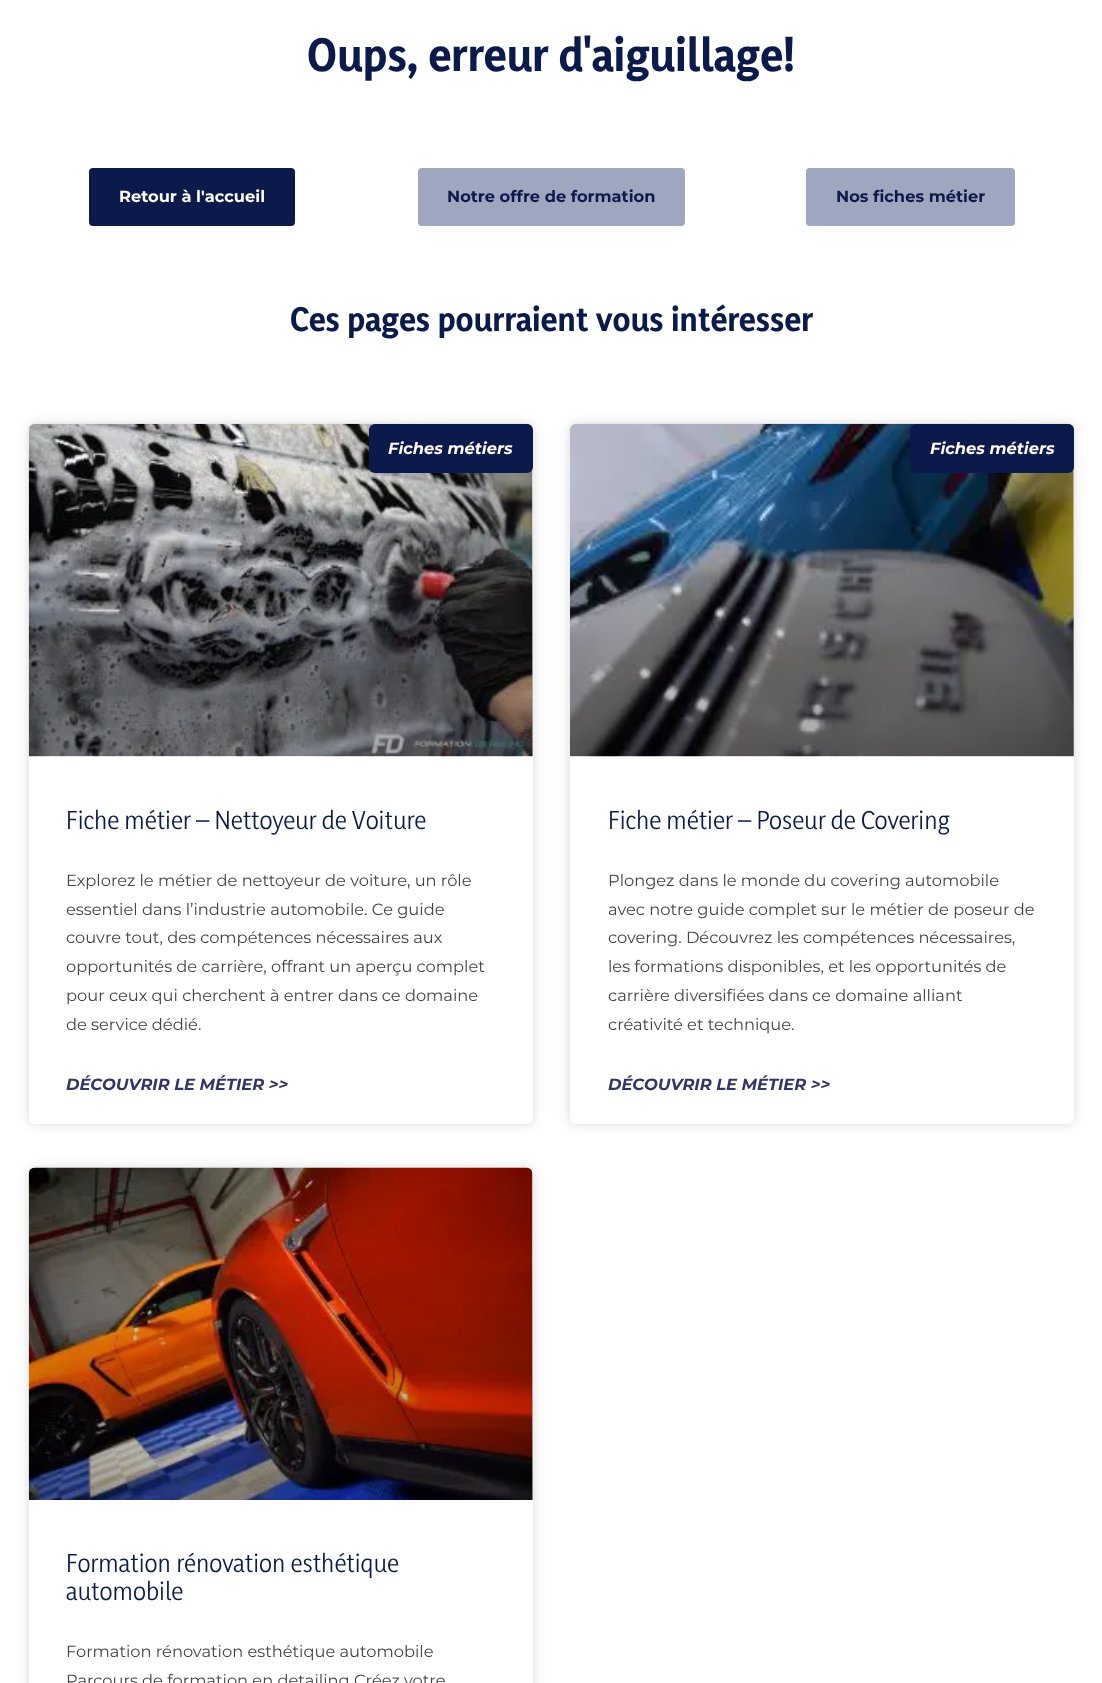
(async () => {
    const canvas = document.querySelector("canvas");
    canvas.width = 1102;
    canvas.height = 1683;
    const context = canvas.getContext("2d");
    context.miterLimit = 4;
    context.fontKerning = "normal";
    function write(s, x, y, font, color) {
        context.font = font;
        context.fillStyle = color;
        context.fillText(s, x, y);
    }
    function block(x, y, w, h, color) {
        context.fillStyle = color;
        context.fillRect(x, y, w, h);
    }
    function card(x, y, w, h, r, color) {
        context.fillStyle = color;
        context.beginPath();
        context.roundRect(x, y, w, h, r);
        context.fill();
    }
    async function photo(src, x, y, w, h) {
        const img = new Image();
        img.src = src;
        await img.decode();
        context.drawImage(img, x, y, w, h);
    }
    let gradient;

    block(0, 0, 1102, 1683, "rgb(255, 255, 255)");
    write("Oups, erreur d'aiguillage!", 307, 71, "bold 42.25px Yaldevi", "rgb(11, 26, 74)");
    card(89, 168, 206, 58, 4, "rgb(11, 26, 74)");
    write("Retour à l'accueil", 119, 202, "bold 16.25px Montserrat", "rgb(255, 255, 255)");
    card(418, 168, 267, 58, 4, "rgb(159, 166, 192)");
    write("Notre offre de formation", 447, 202, "bold 16.25px Montserrat", "rgb(11, 26, 74)");
    card(806, 168, 209, 58, 4, "rgb(159, 166, 192)");
    write("Nos fiches métier", 836, 202, "bold 16.25px Montserrat", "rgb(11, 26, 74)");
    write("Ces pages pourraient vous intéresser", 290, 331, "bold 30.9px Yaldevi", "rgb(11, 26, 74)");
    context.fillStyle = "rgba(0, 0, 0, 0.15)";
    context.filter = "blur(6px)";
    context.beginPath();
    context.roundRect(29, 424, 504, 700, 6);
    context.fill();
    context.filter = "none";
    card(29, 424, 504, 700, 6, "rgb(255, 255, 255)");
    await photo("media/1.png", 28, 423, 505, 334);
    gradient = context.createLinearGradient(281, 756, 281, 424);
    gradient.addColorStop(0, "rgba(0, 0, 0, 0.35)");
    gradient.addColorStop(0.75, "rgba(0, 0, 0, 0)");
    context.fillStyle = gradient;
    context.fillRect(29, 522, 504, 234);
    card(369, 424, 164, 49, 6, "rgb(11, 26, 74)");
    write("Fiches métiers", 388, 454, "italic bold 16.25px Montserrat", "rgb(255, 255, 255)");
    write("Fiche métier – Nettoyeur de Voiture", 66, 829, "23.4px Yaldevi", "rgb(11, 26, 74)");
    write("Explorez le métier de nettoyeur de voiture, un rôle", 66, 886, "16.25px Montserrat", "rgb(68, 68, 68)");
    write("essentiel dans l’industrie automobile. Ce guide", 66, 915, "16.25px Montserrat", "rgb(68, 68, 68)");
    write("couvre tout, des compétences nécessaires aux", 66, 943, "16.25px Montserrat", "rgb(68, 68, 68)");
    write("opportunités de carrière, offrant un aperçu complet", 66, 972, "16.25px Montserrat", "rgb(68, 68, 68)");
    write("pour ceux qui cherchent à entrer dans ce domaine", 66, 1001, "16.25px Montserrat", "rgb(68, 68, 68)");
    write("de service dédié.", 66, 1030, "16.25px Montserrat", "rgb(68, 68, 68)");
    write("DÉCOUVRIR LE MÉTIER >>", 66, 1090, "italic bold 16.25px Montserrat", "rgb(51, 51, 102)");
    context.fillStyle = "rgba(0, 0, 0, 0.15)";
    context.filter = "blur(6px)";
    context.beginPath();
    context.roundRect(570, 424, 504, 700, 6);
    context.fill();
    context.filter = "none";
    card(570, 424, 504, 700, 6, "rgb(255, 255, 255)");
    await photo("media/2.png", 570, 423, 504, 334);
    gradient = context.createLinearGradient(822, 756, 822, 424);
    gradient.addColorStop(0, "rgba(0, 0, 0, 0.35)");
    gradient.addColorStop(0.75, "rgba(0, 0, 0, 0)");
    context.fillStyle = gradient;
    context.fillRect(570, 522, 504, 234);
    card(910, 424, 164, 49, 6, "rgb(11, 26, 74)");
    write("Fiches métiers", 930, 454, "italic bold 16.25px Montserrat", "rgb(255, 255, 255)");
    write("Fiche métier – Poseur de Covering", 608, 829, "23.4px Yaldevi", "rgb(11, 26, 74)");
    write("Plongez dans le monde du covering automobile", 608, 886, "16.25px Montserrat", "rgb(68, 68, 68)");
    write("avec notre guide complet sur le métier de poseur de", 608, 915, "16.25px Montserrat", "rgb(68, 68, 68)");
    write("covering. Découvrez les compétences nécessaires,", 608, 943, "16.25px Montserrat", "rgb(68, 68, 68)");
    write("les formations disponibles, et les opportunités de", 608, 972, "16.25px Montserrat", "rgb(68, 68, 68)");
    write("carrière diversifiées dans ce domaine alliant", 608, 1001, "16.25px Montserrat", "rgb(68, 68, 68)");
    write("créativité et technique.", 608, 1030, "16.25px Montserrat", "rgb(68, 68, 68)");
    write("DÉCOUVRIR LE MÉTIER >>", 608, 1090, "italic bold 16.25px Montserrat", "rgb(51, 51, 102)");
    context.fillStyle = "rgba(0, 0, 0, 0.15)";
    context.filter = "blur(6px)";
    context.beginPath();
    context.roundRect(29, 1168, 504, 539, 6);
    context.fill();
    context.filter = "none";
    card(29, 1168, 504, 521, 6, "rgb(255, 255, 255)");
    await photo("media/3.png", 28, 1167, 505, 333);
    gradient = context.createLinearGradient(281, 1500, 281, 1168);
    gradient.addColorStop(0, "rgba(0, 0, 0, 0.35)");
    gradient.addColorStop(0.75, "rgba(0, 0, 0, 0)");
    context.fillStyle = gradient;
    context.fillRect(29, 1266, 504, 234);
    write("Formation rénovation esthétique", 66, 1572, "23.4px Yaldevi", "rgb(11, 26, 74)");
    write("automobile", 66, 1600, "23.4px Yaldevi", "rgb(11, 26, 74)");
    write("Formation rénovation esthétique automobile", 66, 1657, "16.25px Montserrat", "rgb(68, 68, 68)");
    write("Parcours de formation en detailing Créez votre", 66, 1686, "16.25px Montserrat", "rgb(68, 68, 68)");
})();
